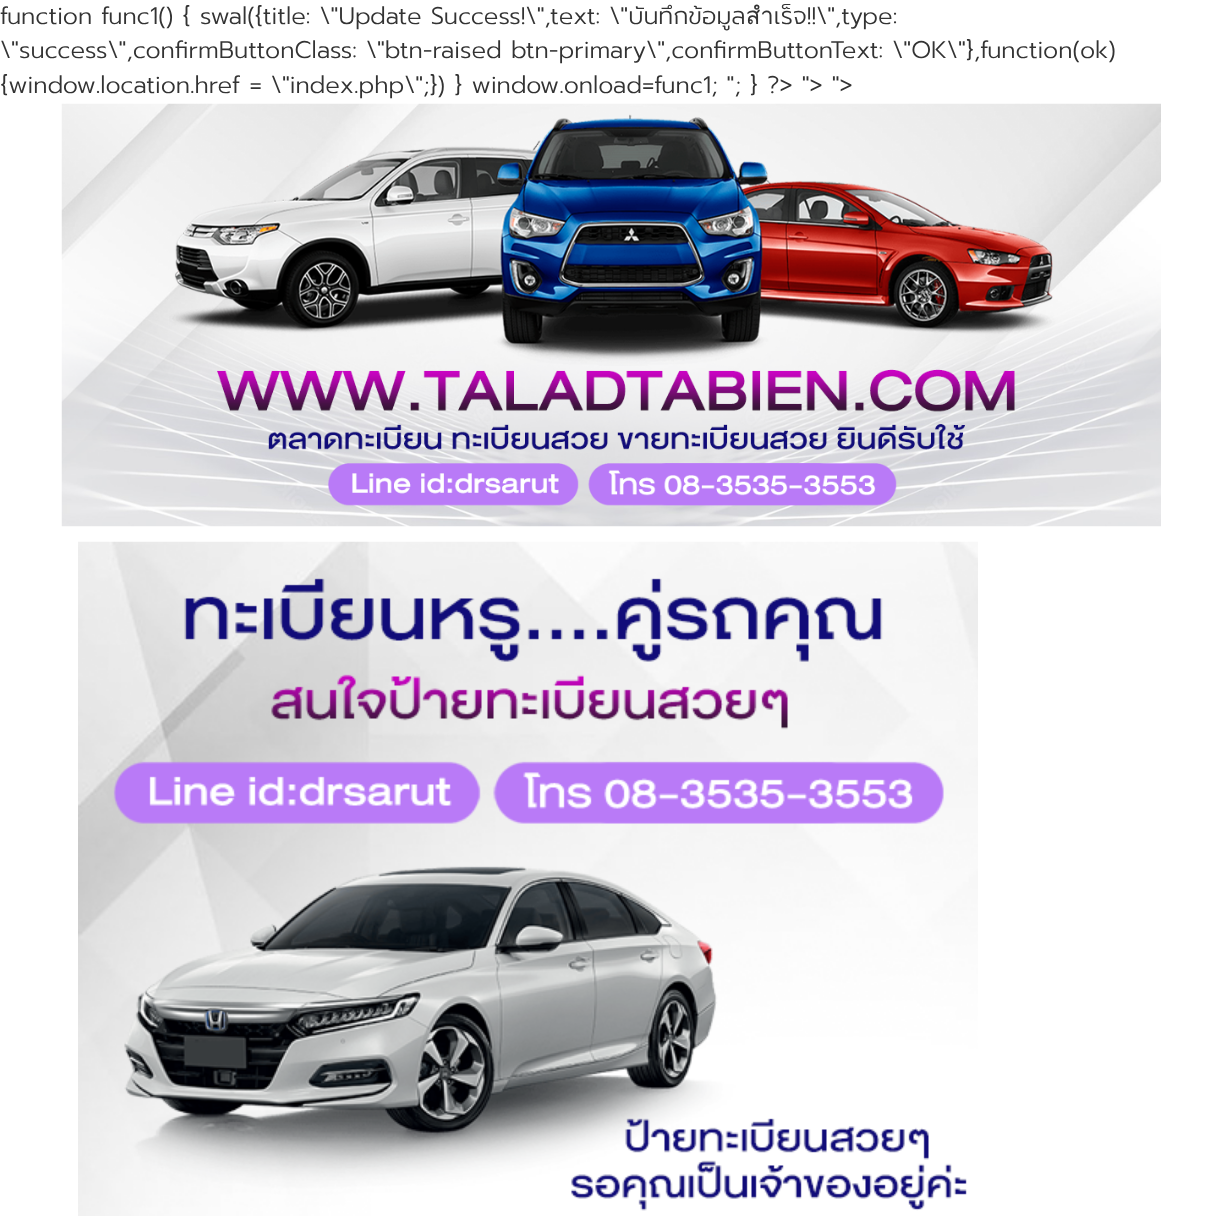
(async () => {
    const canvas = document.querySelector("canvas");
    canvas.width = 1222;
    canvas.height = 1232;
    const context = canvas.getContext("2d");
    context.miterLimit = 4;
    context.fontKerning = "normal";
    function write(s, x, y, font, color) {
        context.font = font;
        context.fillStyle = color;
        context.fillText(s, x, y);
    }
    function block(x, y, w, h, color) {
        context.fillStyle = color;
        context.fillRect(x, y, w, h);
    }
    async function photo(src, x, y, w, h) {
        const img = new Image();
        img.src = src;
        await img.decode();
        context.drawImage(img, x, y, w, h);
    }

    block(0, 0, 1222, 1232, "rgb(255, 255, 255)");
    write("function func1() {", 0, 24, "300 24px Prompt", "rgb(51, 51, 51)");
    write("swal({title: \\\"Update Success!\\\",text: \\\"บันทึกข้อมูลสำเร็จ!!\\\",type:", 200, 24, "300 24px Prompt", "rgb(51, 51, 51)");
    write("\\\"success\\\",confirmButtonClass: \\\"btn-raised btn-primary\\\",confirmButtonText: \\\"OK\\\"},function(ok)", 0, 58, "300 24px Prompt", "rgb(51, 51, 51)");
    write("{window.location.href = \\\"index.php\\\";}) } window.onload=func1; \"; } ?> \"> \">", 0, 93, "300 24px Prompt", "rgb(51, 51, 51)");
    await photo("media/1.png", 61, 103, 1100, 424);
    await photo("media/2.png", 78, 541, 900, 675);
})();
